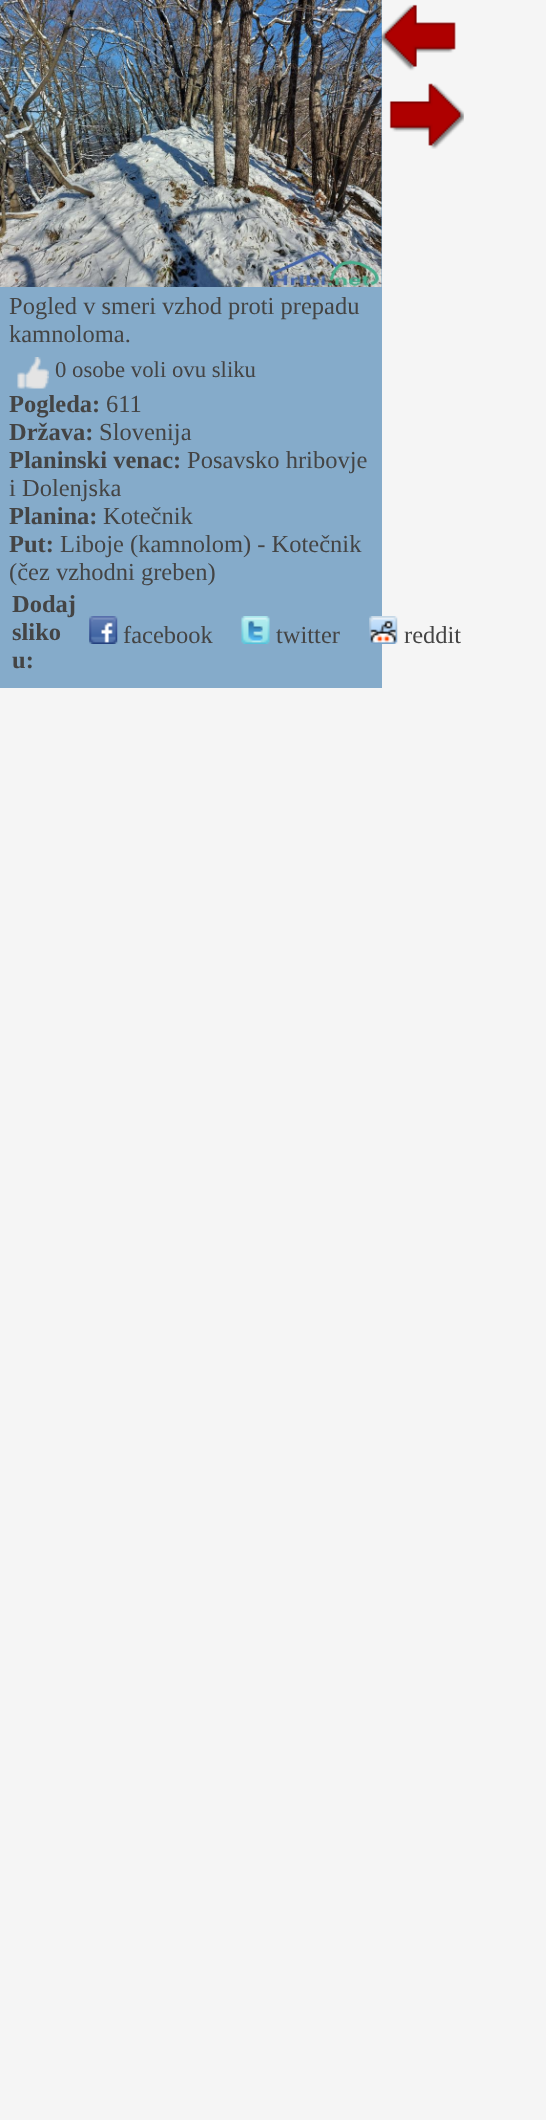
(async () => {
    const canvas = document.querySelector("canvas");
    canvas.width = 546;
    canvas.height = 2120;
    const context = canvas.getContext("2d");
    context.miterLimit = 4;
    context.fontKerning = "normal";
    function write(s, x, y, font, color) {
        context.font = font;
        context.fillStyle = color;
        context.fillText(s, x, y);
    }
    function block(x, y, w, h, color) {
        context.fillStyle = color;
        context.fillRect(x, y, w, h);
    }
    async function photo(src, x, y, w, h) {
        const img = new Image();
        img.src = src;
        await img.decode();
        context.drawImage(img, x, y, w, h);
    }

    block(0, 0, 546, 2120, "rgb(245, 245, 245)");
    block(0, 0, 382, 688, "rgb(133, 171, 202)");
    await photo("media/3.png", 0, 0, 382, 287);
    await photo("media/1.png", 381, 4, 75, 67);
    await photo("media/2.png", 389, 83, 75, 66);
    write("Pogled v smeri vzhod proti prepadu", 9, 314, "24.5px Liberation Serif", "rgb(68, 68, 68)");
    write("kamnoloma.", 9, 342, "24.5px Liberation Serif", "rgb(68, 68, 68)");
    await photo("media/4.png", 17, 357, 32, 32);
    write("0 osobe voli ovu sliku", 55, 377, "22.75px Liberation Serif", "rgb(68, 68, 68)");
    write("Pogleda:", 9, 412, "bold 24.5px Liberation Serif", "rgb(68, 68, 68)");
    write("611", 106, 412, "24.5px Liberation Serif", "rgb(68, 68, 68)");
    write("Država:", 9, 440, "bold 24.5px Liberation Serif", "rgb(68, 68, 68)");
    write("Slovenija", 99, 440, "24.5px Liberation Serif", "rgb(68, 68, 68)");
    write("Planinski venac:", 9, 468, "bold 24.5px Liberation Serif", "rgb(68, 68, 68)");
    write("Posavsko hribovje", 187, 468, "24.5px Liberation Serif", "rgb(68, 68, 68)");
    write("i Dolenjska", 9, 496, "24.5px Liberation Serif", "rgb(68, 68, 68)");
    write("Planina:", 9, 524, "bold 24.5px Liberation Serif", "rgb(68, 68, 68)");
    write("Kotečnik", 103, 524, "24.5px Liberation Serif", "rgb(68, 68, 68)");
    write("Put:", 9, 552, "bold 24.5px Liberation Serif", "rgb(68, 68, 68)");
    write("Liboje (kamnolom) - Kotečnik", 60, 552, "24.5px Liberation Serif", "rgb(68, 68, 68)");
    write("(čez vzhodni greben)", 9, 580, "24.5px Liberation Serif", "rgb(68, 68, 68)");
    write("Dodaj", 12, 612, "bold 24.5px Liberation Serif", "rgb(68, 68, 68)");
    write("sliko", 12, 640, "bold 24.5px Liberation Serif", "rgb(68, 68, 68)");
    write("u:", 12, 668, "bold 24.5px Liberation Serif", "rgb(68, 68, 68)");
    await photo("media/5.png", 89, 616, 29, 28);
    write("facebook", 123, 643, "24.5px Liberation Serif", "rgb(68, 68, 68)");
    await photo("media/6.png", 241, 616, 29, 28);
    write("twitter", 276, 643, "24.5px Liberation Serif", "rgb(68, 68, 68)");
    await photo("media/7.png", 369, 616, 29, 28);
    write("reddit", 404, 643, "24.5px Liberation Serif", "rgb(68, 68, 68)");
})();
